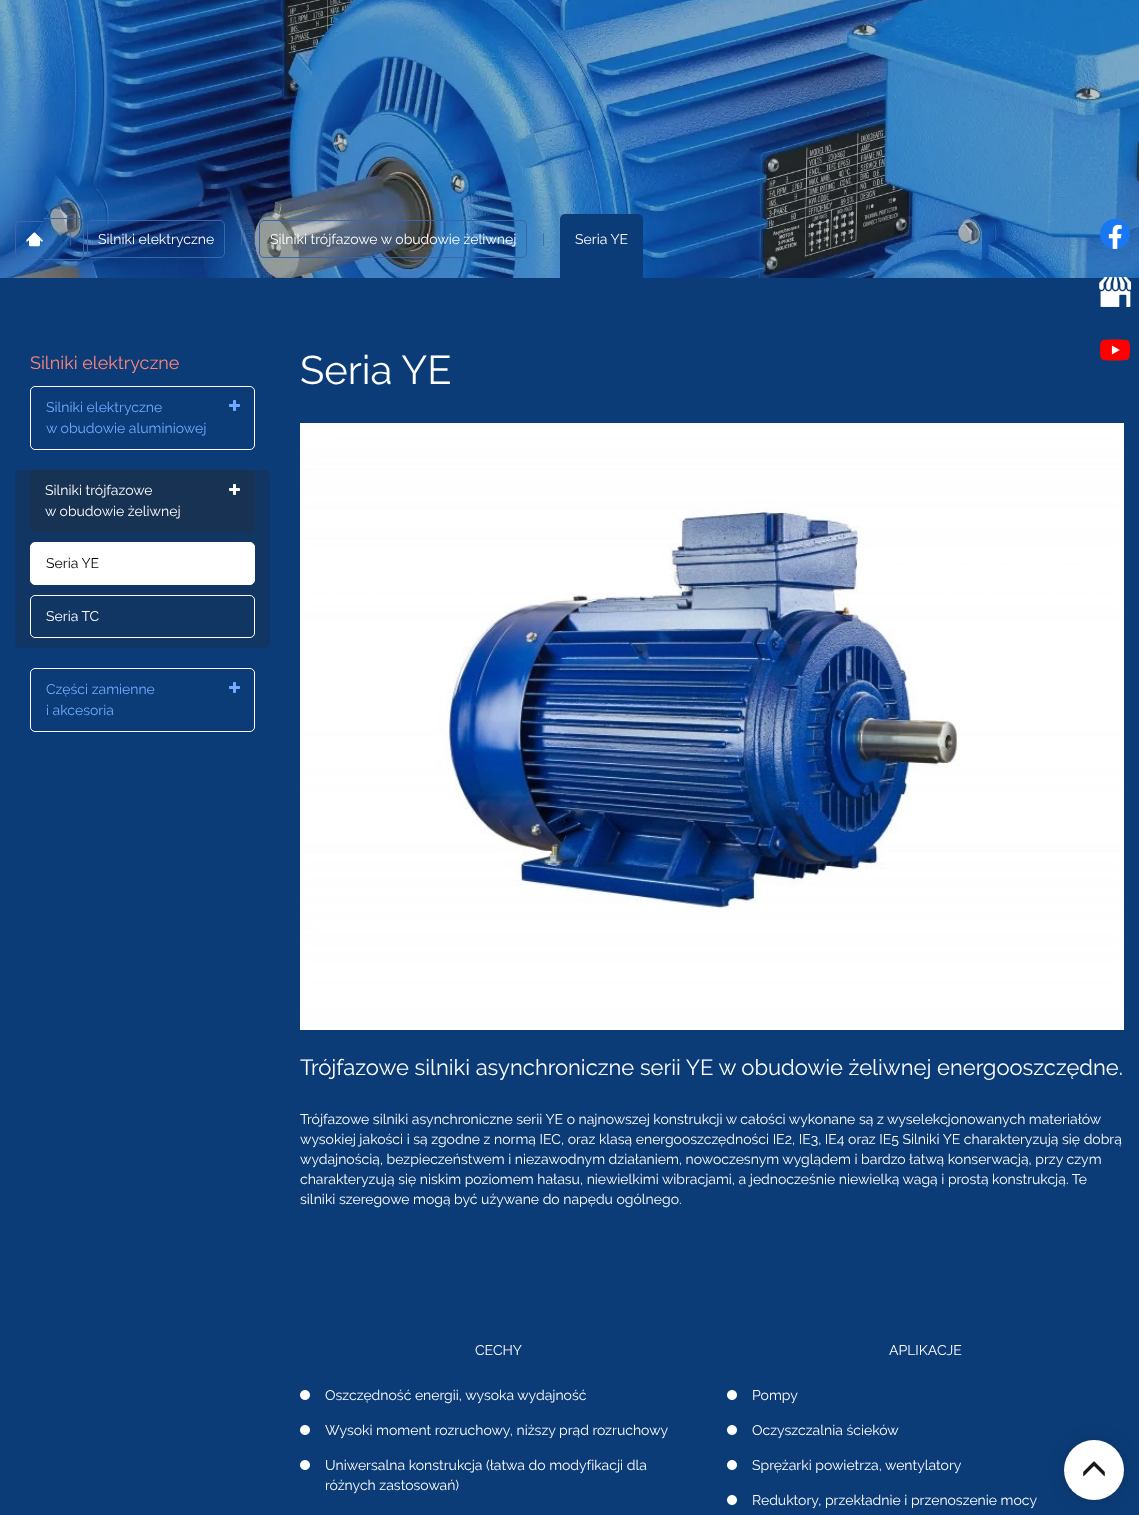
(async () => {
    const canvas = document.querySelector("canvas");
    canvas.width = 1139;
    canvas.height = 1515;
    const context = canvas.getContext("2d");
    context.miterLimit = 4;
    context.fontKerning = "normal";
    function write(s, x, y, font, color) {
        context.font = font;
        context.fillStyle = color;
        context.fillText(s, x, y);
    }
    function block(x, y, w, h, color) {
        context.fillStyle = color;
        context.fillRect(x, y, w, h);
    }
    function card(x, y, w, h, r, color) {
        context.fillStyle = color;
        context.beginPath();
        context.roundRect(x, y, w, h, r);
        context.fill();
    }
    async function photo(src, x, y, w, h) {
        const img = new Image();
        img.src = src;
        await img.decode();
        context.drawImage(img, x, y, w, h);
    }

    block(0, 0, 1139, 1515, "rgb(12, 60, 120)");
    await photo("media/5.png", 0, 0, 1139, 278);
    await photo("media/1.png", 1100, 219, 30, 30);
    await photo("media/2.png", 1099, 277, 32, 30);
    await photo("media/3.png", 1100, 339, 30, 22);
    context.fillStyle = "rgba(0, 0, 0, 0.15)";
    context.filter = "blur(8px)";
    context.beginPath();
    context.roundRect(1063, 1439, 62, 62, 31);
    context.fill();
    context.filter = "none";
    context.fillStyle = "rgb(255, 255, 255)";
    context.beginPath();
    context.arc(1094, 1470, 30, 0, Math.PI * 2);
    context.fill();
    await photo("media/4.png", 1083, 1461, 22, 16);
    context.fillStyle = "rgb(58, 103, 171)";
    context.beginPath();
    context.moveTo(20, 221);
    context.lineTo(43, 221);
    context.lineTo(43, 258);
    context.lineTo(20, 258);
    context.bezierCurveTo(17, 258, 15, 256, 15, 253);
    context.lineTo(15, 226);
    context.bezierCurveTo(15, 223, 17, 221, 20, 221);
    context.closePath();
    context.moveTo(20, 222);
    context.lineTo(43, 222);
    context.lineTo(43, 257);
    context.lineTo(20, 257);
    context.bezierCurveTo(18, 257, 16, 255, 16, 253);
    context.lineTo(16, 226);
    context.bezierCurveTo(16, 224, 18, 222, 20, 222);
    context.closePath();
    context.fill("evenodd");
    context.beginPath();
    context.moveTo(43, 218);
    context.lineTo(79, 218);
    context.bezierCurveTo(82, 218, 84, 220, 84, 223);
    context.lineTo(84, 255);
    context.bezierCurveTo(84, 258, 82, 260, 79, 260);
    context.lineTo(43, 260);
    context.closePath();
    context.moveTo(43, 219);
    context.lineTo(79, 219);
    context.bezierCurveTo(81, 219, 83, 221, 83, 223);
    context.lineTo(83, 255);
    context.bezierCurveTo(83, 257, 81, 259, 79, 259);
    context.lineTo(43, 259);
    context.closePath();
    context.fill("evenodd");
    await photo("media/6.png", 26, 232, 17, 15);
    write("|", 69, 244, "14px Raleway", "rgb(58, 103, 171)");
    context.beginPath();
    context.roundRect(87.5, 220.5, 137, 37, 4.5);
    context.strokeStyle = "rgb(58, 103, 171)";
    context.stroke();
    write("Silniki elektryczne", 98, 244, "14px Raleway", "rgb(255, 255, 255)");
    write("|", 240, 244, "14px Raleway", "rgb(58, 103, 171)");
    context.beginPath();
    context.roundRect(259.5, 220.5, 267, 37, 4.5);
    context.stroke();
    write("Silniki trójfazowe w obudowie żeliwnej", 270, 244, "14px Raleway", "rgb(255, 255, 255)");
    write("|", 542, 244, "14px Raleway", "rgb(58, 103, 171)");
    context.fillStyle = "rgb(12, 60, 120)";
    context.beginPath();
    context.roundRect(560, 214, 83, 65, [5, 5, 0, 0]);
    context.fill();
    write("Seria YE", 575, 244, "14px Raleway", "rgb(255, 255, 255)");
    write("Silniki elektryczne", 30, 369, "18px Raleway", "rgb(255, 133, 124)");
    context.beginPath();
    context.roundRect(30.5, 386.5, 224, 63, 4.5);
    context.strokeStyle = "rgb(255, 255, 255)";
    context.stroke();
    write("Silniki elektryczne", 46, 412, "14px Raleway", "rgb(113, 170, 255)");
    write("w obudowie aluminiowej", 46, 433, "14px Raleway", "rgb(113, 170, 255)");
    await photo("media/7.png", 229, 400, 11, 11);
    card(15, 470, 255, 178, 5, "rgb(18, 54, 99)");
    card(30, 470, 225, 62, 5, "rgb(23, 50, 83)");
    write("Silniki trójfazowe", 45, 495, "14px Raleway", "rgb(255, 255, 255)");
    write("w obudowie żeliwnej", 45, 516, "14px Raleway", "rgb(255, 255, 255)");
    await photo("media/8.png", 229, 484, 11, 11);
    context.beginPath();
    context.roundRect(30.5, 542.5, 224, 42, 4.5);
    context.fill();
    context.stroke();
    write("Seria YE", 46, 568, "14px Raleway", "rgb(0, 0, 0)");
    context.beginPath();
    context.roundRect(30.5, 595.5, 224, 42, 4.5);
    context.stroke();
    write("Seria TC", 46, 621, "14px Raleway", "rgb(255, 255, 255)");
    context.beginPath();
    context.roundRect(30.5, 668.5, 224, 63, 4.5);
    context.stroke();
    write("Części zamienne", 46, 694, "14px Raleway", "rgb(113, 170, 255)");
    write("i akcesoria", 46, 715, "14px Raleway", "rgb(113, 170, 255)");
    await photo("media/7.png", 229, 682, 11, 11);
    write("Seria YE", 300, 384, "40px Raleway", "rgb(255, 255, 255)");
    await photo("media/9.png", 300, 423, 824, 607);
    write("Trójfazowe silniki asynchroniczne serii YE w obudowie żeliwnej energooszczędne.", 300, 1075, "22px Raleway", "rgb(255, 255, 255)");
    write("Trójfazowe silniki asynchroniczne serii YE o najnowszej konstrukcji w całości wykonane są z wyselekcjonowanych materiałów", 300, 1124, "14px Raleway", "rgb(255, 255, 255)");
    write("wysokiej jakości i są zgodne z normą IEC, oraz klasą energooszczędności IE2, IE3, IE4 oraz IE5 Silniki YE charakteryzują się dobrą", 300, 1144, "14px Raleway", "rgb(255, 255, 255)");
    write("wydajnością, bezpieczeństwem i niezawodnym działaniem, nowoczesnym wyglądem i bardzo łatwą konserwacją, przy czym", 300, 1164, "14px Raleway", "rgb(255, 255, 255)");
    write("charakteryzują się niskim poziomem hałasu, niewielkimi wibracjami, a jednocześnie niewielką wagą i prostą konstrukcją. Te", 300, 1184, "14px Raleway", "rgb(255, 255, 255)");
    write("silniki szeregowe mogą być używane do napędu ogólnego.", 300, 1204, "14px Raleway", "rgb(255, 255, 255)");
    write("CECHY", 475, 1355, "14px Raleway", "rgb(255, 255, 255)");
    await photo("media/10.png", 300, 1390, 10, 10);
    write("Oszczędność energii, wysoka wydajność", 325, 1400, "14px Raleway", "rgb(255, 255, 255)");
    await photo("media/10.png", 300, 1425, 10, 10);
    write("Wysoki moment rozruchowy, niższy prąd rozruchowy", 325, 1435, "14px Raleway", "rgb(255, 255, 255)");
    await photo("media/10.png", 300, 1460, 10, 10);
    write("Uniwersalna konstrukcja (łatwa do modyfikacji dla", 325, 1470, "14px Raleway", "rgb(255, 255, 255)");
    write("różnych zastosowań)", 325, 1490, "14px Raleway", "rgb(255, 255, 255)");
    write("APLIKACJE", 889, 1355, "14px Raleway", "rgb(255, 255, 255)");
    await photo("media/10.png", 727, 1390, 10, 10);
    write("Pompy", 752, 1400, "14px Raleway", "rgb(255, 255, 255)");
    await photo("media/10.png", 727, 1425, 10, 10);
    write("Oczyszczalnia ścieków", 752, 1435, "14px Raleway", "rgb(255, 255, 255)");
    await photo("media/10.png", 727, 1460, 10, 10);
    write("Sprężarki powietrza, wentylatory", 752, 1470, "14px Raleway", "rgb(255, 255, 255)");
    await photo("media/10.png", 727, 1495, 10, 10);
    write("Reduktory, przekładnie i przenoszenie mocy", 752, 1505, "14px Raleway", "rgb(255, 255, 255)");
})();
